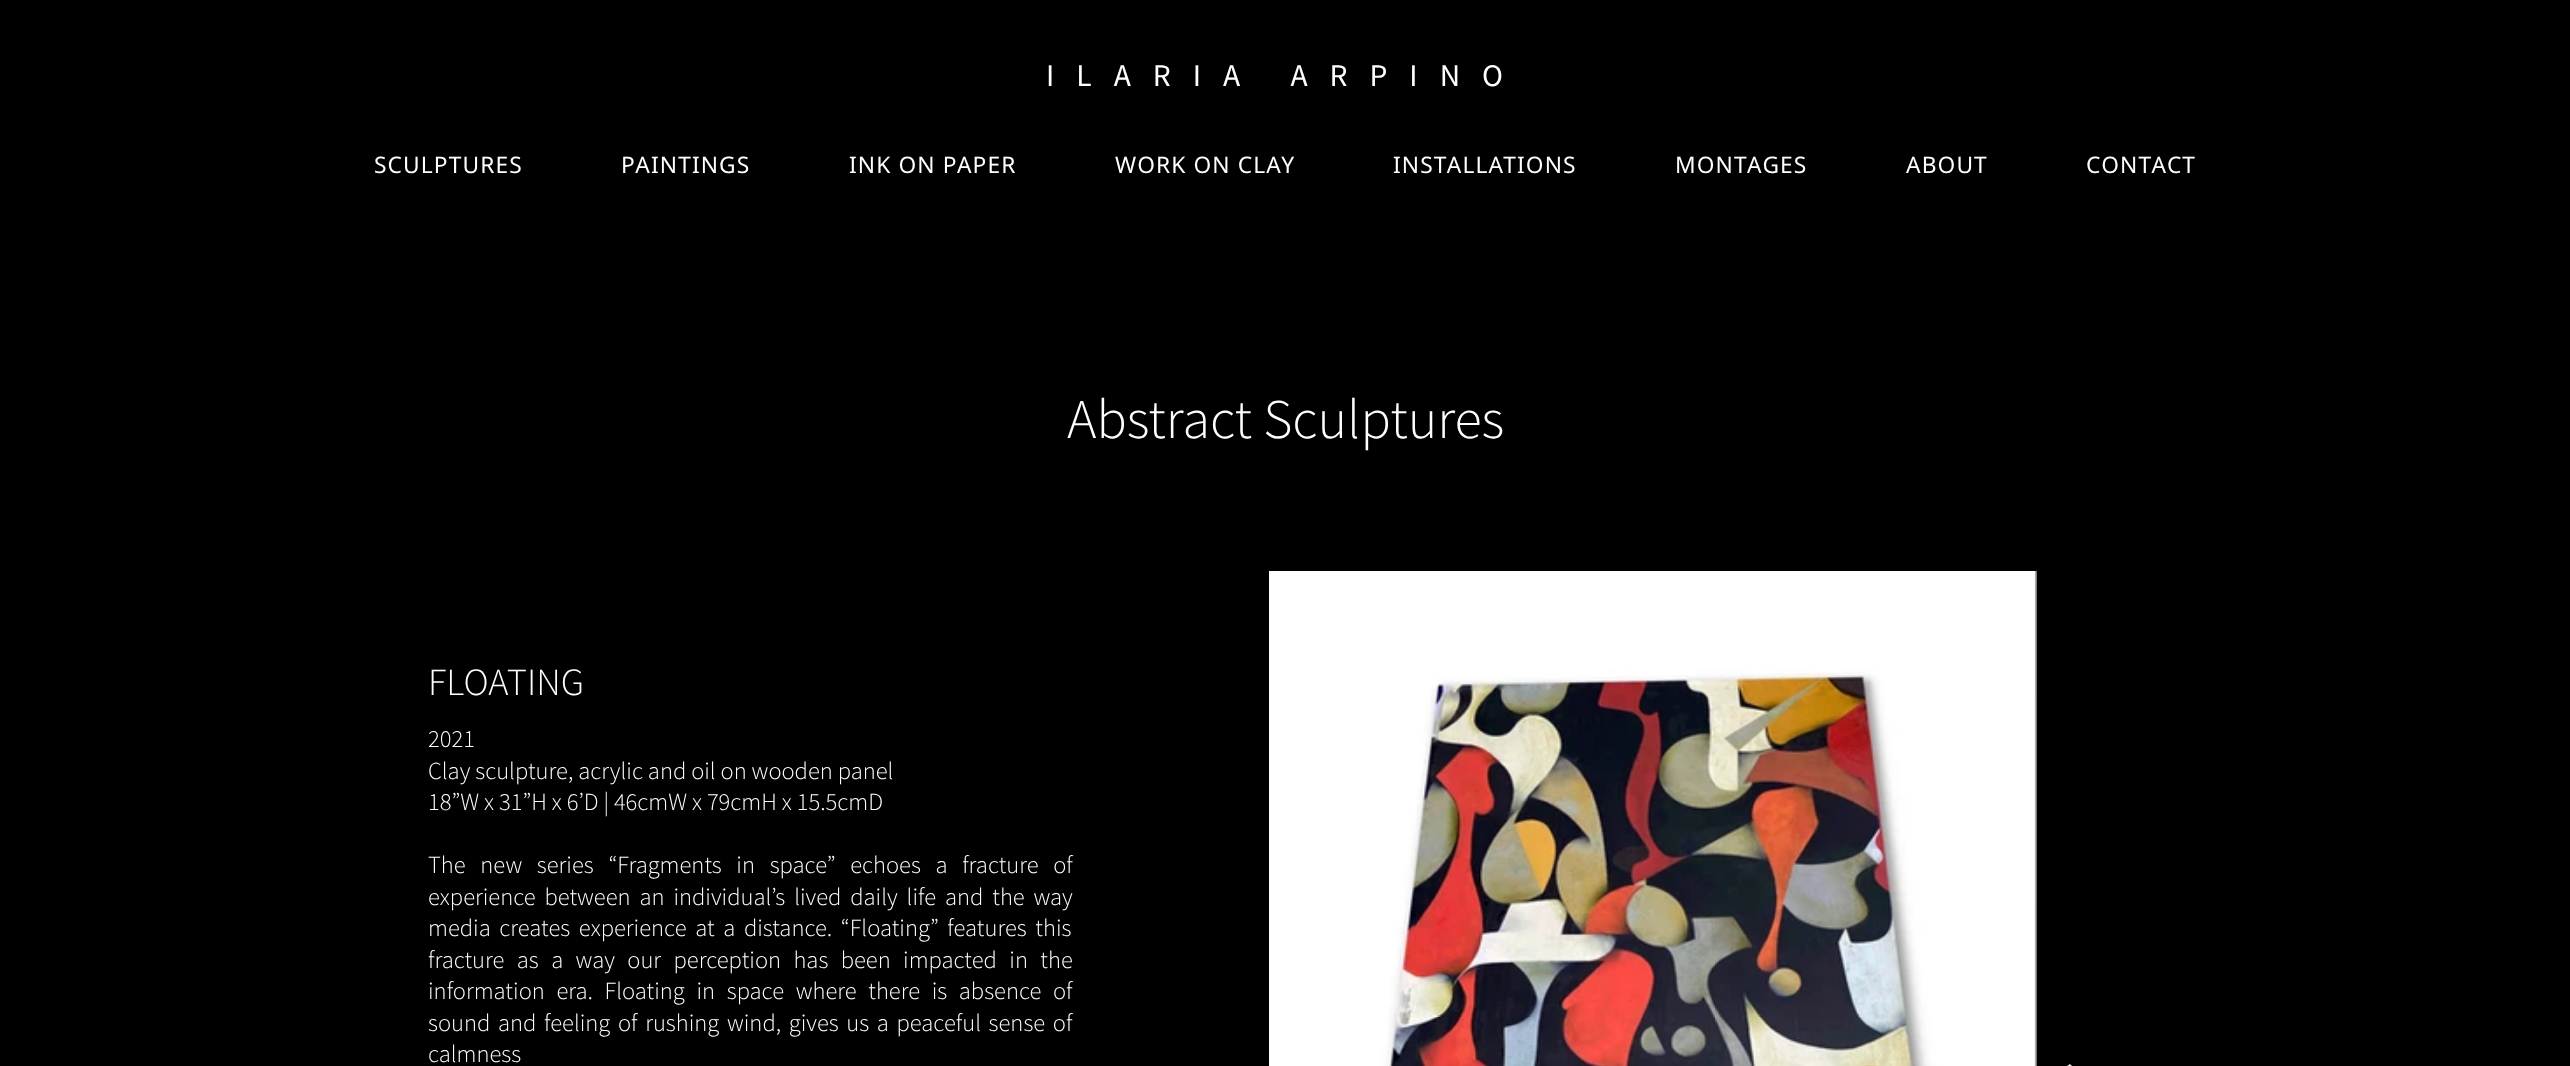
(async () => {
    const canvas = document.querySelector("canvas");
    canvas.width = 2570;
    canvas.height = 1066;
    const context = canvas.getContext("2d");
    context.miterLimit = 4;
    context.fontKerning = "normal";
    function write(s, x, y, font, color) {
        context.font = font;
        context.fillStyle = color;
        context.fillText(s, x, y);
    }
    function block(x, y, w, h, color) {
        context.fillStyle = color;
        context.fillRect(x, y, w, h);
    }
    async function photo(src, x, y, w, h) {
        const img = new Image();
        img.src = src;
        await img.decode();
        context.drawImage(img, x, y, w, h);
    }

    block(0, 0, 2570, 1066, "rgb(0, 0, 0)");
    context.letterSpacing = "22px";
    write("ILARIA ARPINO", 1046, 86, "31.5px Source Sans Pro", "rgb(255, 255, 255)");
    context.letterSpacing = "1.1px";
    write("SCULPTURES", 374, 173, "22.75px Noto Sans", "rgb(255, 255, 255)");
    write("PAINTINGS", 621, 173, "22.75px Noto Sans", "rgb(255, 255, 255)");
    write("INK ON PAPER", 849, 173, "22.75px Noto Sans", "rgb(255, 255, 255)");
    write("WORK ON CLAY", 1115, 173, "22.75px Noto Sans", "rgb(255, 255, 255)");
    write("INSTALLATIONS", 1393, 173, "22.75px Noto Sans", "rgb(255, 255, 255)");
    write("MONTAGES", 1675, 173, "22.75px Noto Sans", "rgb(255, 255, 255)");
    write("ABOUT", 1906, 173, "22.75px Noto Sans", "rgb(255, 255, 255)");
    write("CONTACT", 2086, 173, "22.75px Noto Sans", "rgb(255, 255, 255)");
    context.letterSpacing = "0px";
    write("Abstract Sculptures", 1067, 438, "300 56px Source Sans Pro", "rgb(255, 255, 255)");
    write("FLOATING", 428, 695, "300 38.5px Source Sans Pro", "rgb(255, 255, 255)");
    write("2021", 428, 747, "300 24.5px Source Sans Pro", "rgb(255, 255, 255)");
    write("Clay sculpture, acrylic and oil on wooden panel", 428, 779, "300 24.5px Source Sans Pro", "rgb(255, 255, 255)");
    write("18”W x 31”H x 6’D | 46cmW x 79cmH x 15.5cmD", 428, 810, "300 24.5px Source Sans Pro", "rgb(255, 255, 255)");
    context.wordSpacing = "9.75px";
    write("The new series “Fragments in space” echoes a fracture of", 428, 873, "300 24.5px Source Sans Pro", "rgb(255, 255, 255)");
    context.wordSpacing = "4px";
    write("experience between an individual’s lived daily life and the way", 428, 905, "300 24.5px Source Sans Pro", "rgb(255, 255, 255)");
    context.wordSpacing = "3.75px";
    write("media creates experience at a distance. “Floating” features this", 428, 936, "300 24.5px Source Sans Pro", "rgb(255, 255, 255)");
    context.wordSpacing = "7.5px";
    write("fracture as a way our perception has been impacted in the", 428, 968, "300 24.5px Source Sans Pro", "rgb(255, 255, 255)");
    context.wordSpacing = "6.75px";
    write("information era. Floating in space where there is absence of", 428, 999, "300 24.5px Source Sans Pro", "rgb(255, 255, 255)");
    context.wordSpacing = "2.75px";
    write("sound and feeling of rushing wind, gives us a peaceful sense of", 428, 1031, "300 24.5px Source Sans Pro", "rgb(255, 255, 255)");
    context.wordSpacing = "0px";
    write("calmness", 428, 1062, "300 24.5px Source Sans Pro", "rgb(255, 255, 255)");
    await photo("media/2.png", 2034, 571, 3, 495);
    await photo("media/1.png", 1269, 571, 767, 495);
    context.fillStyle = "rgb(230, 230, 230)";
    context.beginPath();
    context.moveTo(2067, 1066);
    context.lineTo(2070, 1064);
    context.lineTo(2100, 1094);
    context.lineTo(2070, 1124);
    context.lineTo(2067, 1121);
    context.lineTo(2095, 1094);
    context.closePath();
    context.fill();
})();
